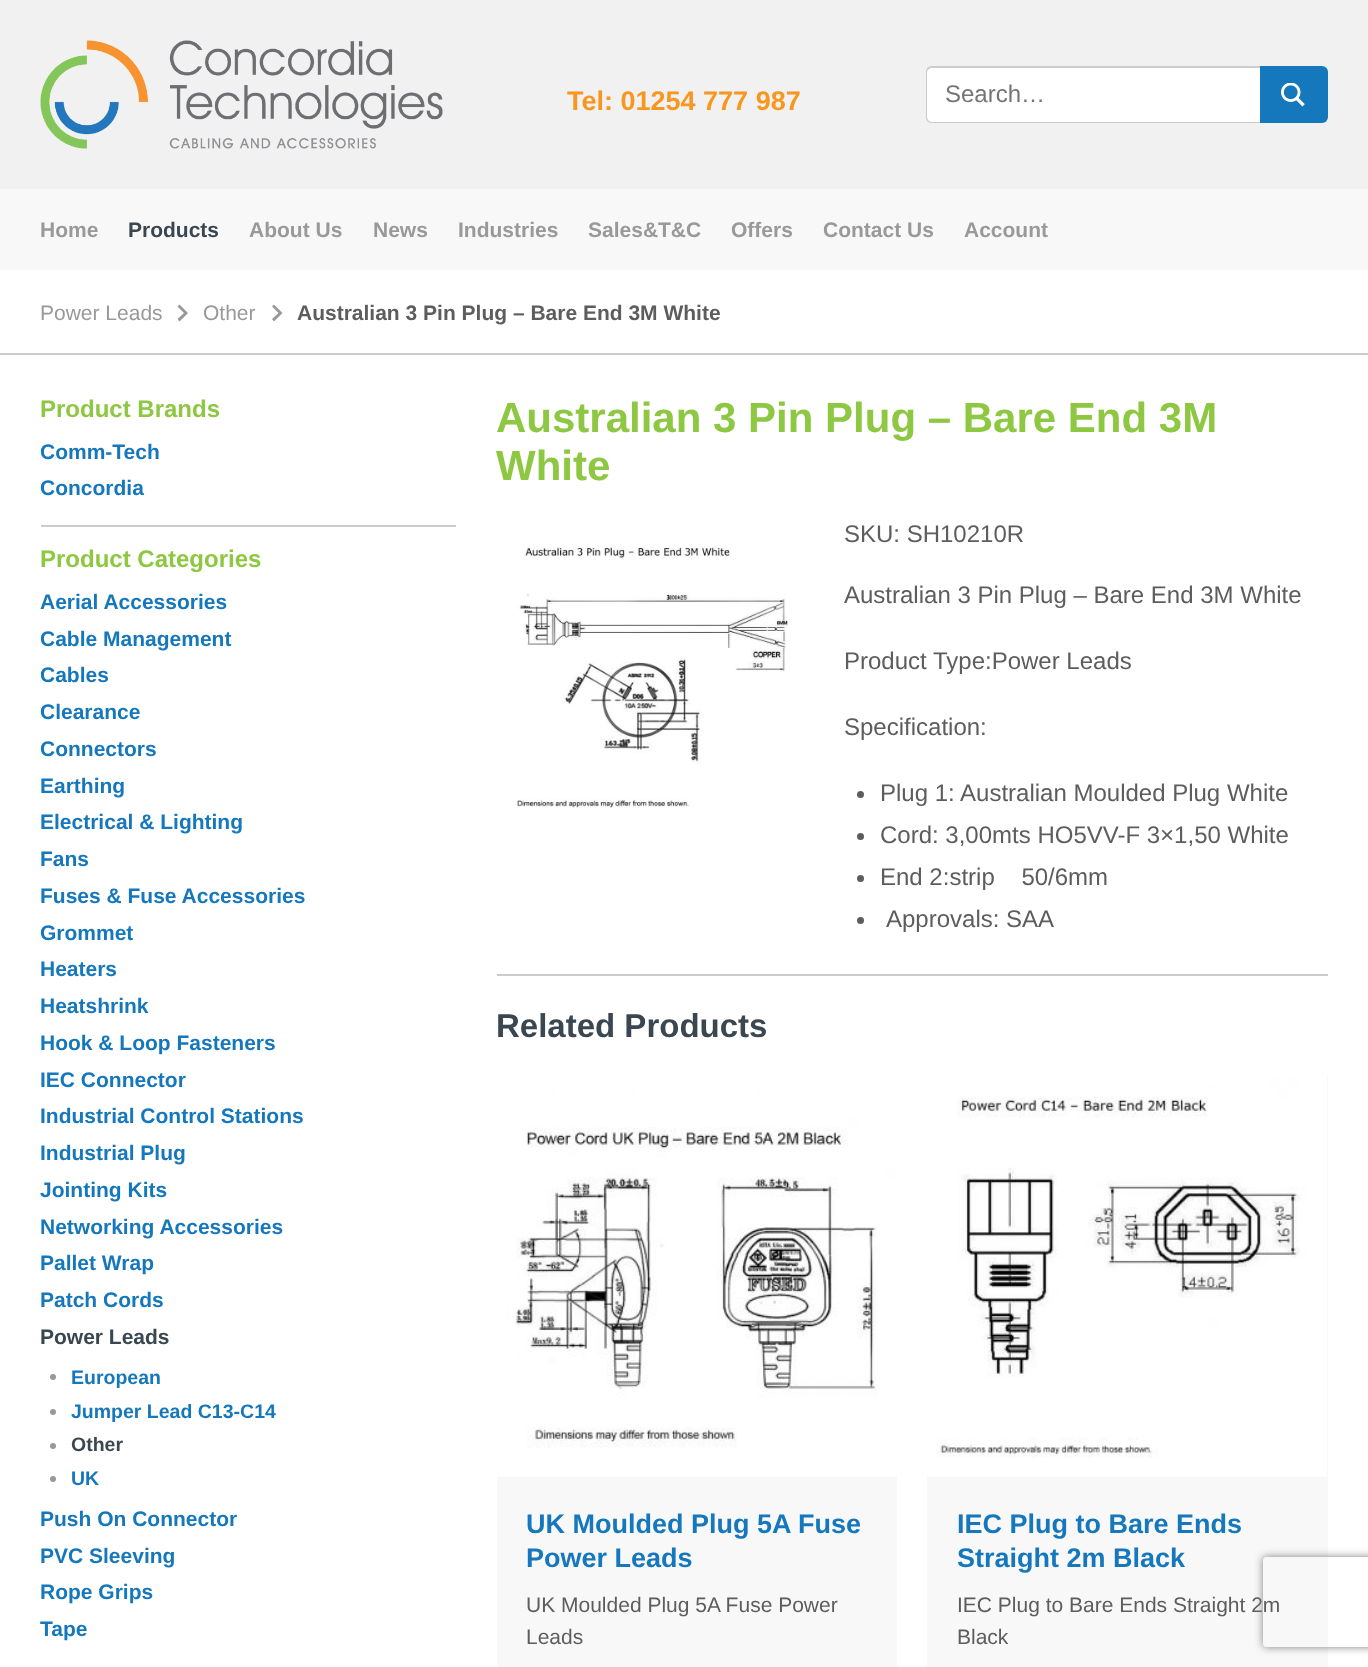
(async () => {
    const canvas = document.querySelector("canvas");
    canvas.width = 1368;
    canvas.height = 1667;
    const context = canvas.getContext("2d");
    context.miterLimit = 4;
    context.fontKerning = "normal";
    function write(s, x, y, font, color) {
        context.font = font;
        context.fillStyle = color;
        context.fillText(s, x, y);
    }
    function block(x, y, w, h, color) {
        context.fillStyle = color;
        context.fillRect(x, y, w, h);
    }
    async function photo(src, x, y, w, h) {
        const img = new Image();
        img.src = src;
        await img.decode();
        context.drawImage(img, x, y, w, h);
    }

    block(0, 0, 1368, 1667, "rgb(241, 241, 241)");
    await photo("media/1.png", 40, 40, 403, 109);
    write("Tel: 01254 777 987", 567, 110, "bold 27px Liberation Sans", "rgb(248, 151, 32)");
    context.fillStyle = "rgb(255, 255, 255)";
    context.beginPath();
    context.roundRect(927, 68, 333, 54, [5, 0, 0, 5]);
    context.fill();
    context.fillStyle = "rgb(204, 204, 204)";
    context.beginPath();
    context.moveTo(932, 66);
    context.lineTo(1260, 66);
    context.lineTo(1260, 123);
    context.lineTo(932, 123);
    context.bezierCurveTo(928, 123, 926, 120, 926, 117);
    context.lineTo(926, 72);
    context.bezierCurveTo(926, 69, 928, 66, 932, 66);
    context.closePath();
    context.moveTo(932, 68);
    context.lineTo(1260, 68);
    context.lineTo(1260, 122);
    context.lineTo(932, 122);
    context.bezierCurveTo(929, 122, 927, 119, 927, 117);
    context.lineTo(927, 72);
    context.bezierCurveTo(927, 70, 929, 68, 932, 68);
    context.closePath();
    context.fill("evenodd");
    write("Search…", 945, 102, "24px Liberation Sans", "rgb(117, 117, 117)");
    context.fillStyle = "rgb(21, 119, 188)";
    context.beginPath();
    context.roundRect(1260, 66, 68, 57, [0, 6, 6, 0]);
    context.fill();
    await photo("media/2.png", 1281, 83, 24, 24);
    block(0, 189, 1368, 81, "rgb(248, 248, 248)");
    write("Home", 40, 237, "bold 21px Liberation Sans", "rgb(153, 153, 153)");
    write("Products", 128, 237, "bold 21px Liberation Sans", "rgb(59, 71, 80)");
    write("About Us", 249, 237, "bold 21px Liberation Sans", "rgb(153, 153, 153)");
    write("News", 373, 237, "bold 21px Liberation Sans", "rgb(153, 153, 153)");
    write("Industries", 458, 237, "bold 21px Liberation Sans", "rgb(153, 153, 153)");
    write("Sales&T&C", 588, 237, "bold 21px Liberation Sans", "rgb(153, 153, 153)");
    write("Offers", 731, 237, "bold 21px Liberation Sans", "rgb(153, 153, 153)");
    write("Contact Us", 823, 237, "bold 21px Liberation Sans", "rgb(153, 153, 153)");
    write("Account", 964, 237, "bold 21px Liberation Sans", "rgb(153, 153, 153)");
    block(0, 270, 1368, 1397, "rgb(255, 255, 255)");
    write("Power Leads", 40, 320, "21px Liberation Sans", "rgb(153, 153, 153)");
    context.beginPath();
    context.moveTo(177.5, 306.5);
    context.lineTo(179.5, 304.5);
    context.lineTo(188, 313);
    context.lineTo(179.5, 321.5);
    context.lineTo(177.5, 319);
    context.lineTo(184, 313);
    context.closePath();
    context.fill();
    write("Other", 203, 320, "21px Liberation Sans", "rgb(153, 153, 153)");
    context.save();
    context.beginPath();
    context.rect(269, 305, 16, 16);
    context.clip();
    context.beginPath();
    context.moveTo(272, 306.5);
    context.lineTo(274, 304.5);
    context.lineTo(282.5, 313);
    context.lineTo(274, 321.5);
    context.lineTo(272, 319);
    context.lineTo(278.5, 313);
    context.closePath();
    context.fill();
    context.restore();
    write("Australian 3 Pin Plug – Bare End 3M White", 297, 320, "bold 21px Liberation Sans", "rgb(93, 93, 93)");
    block(0, 353, 1368, 2, "rgb(204, 204, 204)");
    write("Product Brands", 40, 417, "bold 24px Liberation Sans", "rgb(142, 199, 66)");
    write("Comm-Tech", 40, 459, "bold 21px Liberation Sans", "rgb(21, 119, 188)");
    write("Concordia", 40, 495, "bold 21px Liberation Sans", "rgb(21, 119, 188)");
    block(41, 525, 415, 2, "rgb(204, 204, 204)");
    write("Product Categories", 40, 567, "bold 24px Liberation Sans", "rgb(142, 199, 66)");
    write("Aerial Accessories", 40, 609, "bold 21px Liberation Sans", "rgb(21, 119, 188)");
    write("Cable Management", 40, 646, "bold 21px Liberation Sans", "rgb(21, 119, 188)");
    write("Cables", 40, 682, "bold 21px Liberation Sans", "rgb(21, 119, 188)");
    write("Clearance", 40, 719, "bold 21px Liberation Sans", "rgb(21, 119, 188)");
    write("Connectors", 40, 756, "bold 21px Liberation Sans", "rgb(21, 119, 188)");
    write("Earthing", 40, 793, "bold 21px Liberation Sans", "rgb(21, 119, 188)");
    write("Electrical & Lighting", 40, 829, "bold 21px Liberation Sans", "rgb(21, 119, 188)");
    write("Fans", 40, 866, "bold 21px Liberation Sans", "rgb(21, 119, 188)");
    write("Fuses & Fuse Accessories", 40, 903, "bold 21px Liberation Sans", "rgb(21, 119, 188)");
    write("Grommet", 40, 940, "bold 21px Liberation Sans", "rgb(21, 119, 188)");
    write("Heaters", 40, 976, "bold 21px Liberation Sans", "rgb(21, 119, 188)");
    write("Heatshrink", 40, 1013, "bold 21px Liberation Sans", "rgb(21, 119, 188)");
    write("Hook & Loop Fasteners", 40, 1050, "bold 21px Liberation Sans", "rgb(21, 119, 188)");
    write("IEC Connector", 40, 1087, "bold 21px Liberation Sans", "rgb(21, 119, 188)");
    write("Industrial Control Stations", 40, 1123, "bold 21px Liberation Sans", "rgb(21, 119, 188)");
    write("Industrial Plug", 40, 1160, "bold 21px Liberation Sans", "rgb(21, 119, 188)");
    write("Jointing Kits", 40, 1197, "bold 21px Liberation Sans", "rgb(21, 119, 188)");
    write("Networking Accessories", 40, 1234, "bold 21px Liberation Sans", "rgb(21, 119, 188)");
    write("Pallet Wrap", 40, 1270, "bold 21px Liberation Sans", "rgb(21, 119, 188)");
    write("Patch Cords", 40, 1307, "bold 21px Liberation Sans", "rgb(21, 119, 188)");
    write("Power Leads", 40, 1344, "bold 21px Liberation Sans", "rgb(59, 71, 80)");
    context.fillStyle = "rgb(153, 153, 153)";
    context.beginPath();
    context.arc(53, 1377, 3, 0, Math.PI * 2);
    context.fill();
    write("European", 71, 1384, "bold 19.5px Liberation Sans", "rgb(21, 119, 188)");
    context.fillStyle = "rgb(153, 153, 153)";
    context.beginPath();
    context.arc(53, 1412, 3, 0, Math.PI * 2);
    context.fill();
    write("Jumper Lead C13-C14", 71, 1418, "bold 19.5px Liberation Sans", "rgb(21, 119, 188)");
    context.fillStyle = "rgb(153, 153, 153)";
    context.beginPath();
    context.arc(53, 1446, 3, 0, Math.PI * 2);
    context.fill();
    write("Other", 71, 1451, "bold 19.5px Liberation Sans", "rgb(59, 71, 80)");
    context.fillStyle = "rgb(153, 153, 153)";
    context.beginPath();
    context.arc(53, 1479, 3, 0, Math.PI * 2);
    context.fill();
    write("UK", 71, 1485, "bold 19.5px Liberation Sans", "rgb(21, 119, 188)");
    write("Push On Connector", 40, 1526, "bold 21px Liberation Sans", "rgb(21, 119, 188)");
    write("PVC Sleeving", 40, 1563, "bold 21px Liberation Sans", "rgb(21, 119, 188)");
    write("Rope Grips", 40, 1599, "bold 21px Liberation Sans", "rgb(21, 119, 188)");
    write("Tape", 40, 1636, "bold 21px Liberation Sans", "rgb(21, 119, 188)");
    write("Australian 3 Pin Plug – Bare End 3M", 496, 432, "bold 42px Liberation Sans", "rgb(142, 199, 66)");
    write("White", 496, 480, "bold 42px Liberation Sans", "rgb(142, 199, 66)");
    await photo("media/3.png", 517, 547, 271, 261);
    write("SKU: SH10210R", 844, 542, "24px Liberation Sans", "rgb(93, 93, 93)");
    write("Australian 3 Pin Plug – Bare End 3M White", 844, 603, "24px Liberation Sans", "rgb(93, 93, 93)");
    write("Product Type:Power Leads", 844, 669, "24px Liberation Sans", "rgb(93, 93, 93)");
    write("Specification:", 844, 735, "24px Liberation Sans", "rgb(93, 93, 93)");
    context.beginPath();
    context.arc(860.5, 794.5, 3.5, 0, Math.PI * 2);
    context.fill();
    write("Plug 1: Australian Moulded Plug White", 880, 801, "24px Liberation Sans", "rgb(93, 93, 93)");
    context.beginPath();
    context.arc(860.5, 836.5, 3.5, 0, Math.PI * 2);
    context.fill();
    write("Cord: 3,00mts HO5VV-F 3×1,50 White", 880, 843, "24px Liberation Sans", "rgb(93, 93, 93)");
    context.beginPath();
    context.arc(860.5, 878.5, 3.5, 0, Math.PI * 2);
    context.fill();
    write("End 2:strip    50/6mm", 880, 885, "24px Liberation Sans", "rgb(93, 93, 93)");
    context.beginPath();
    context.arc(860.5, 920.5, 3.5, 0, Math.PI * 2);
    context.fill();
    write("Approvals: SAA", 886, 927, "24px Liberation Sans", "rgb(93, 93, 93)");
    block(497, 974, 831, 2, "rgb(204, 204, 204)");
    write("Related Products", 496, 1037, "bold 33px Liberation Sans", "rgb(59, 71, 80)");
    block(497, 1477, 400, 190, "rgb(248, 248, 248)");
    await photo("media/4.png", 497, 1077, 400, 400);
    write("UK Moulded Plug 5A Fuse", 526, 1533, "bold 27px Liberation Sans", "rgb(21, 119, 188)");
    write("Power Leads", 526, 1567, "bold 27px Liberation Sans", "rgb(21, 119, 188)");
    write("UK Moulded Plug 5A Fuse Power", 526, 1612, "21px Liberation Sans", "rgb(93, 93, 93)");
    write("Leads", 526, 1644, "21px Liberation Sans", "rgb(93, 93, 93)");
    block(927, 1077, 401, 590, "rgb(248, 248, 248)");
    await photo("media/5.png", 927, 1077, 400, 400);
    write("IEC Plug to Bare Ends", 957, 1533, "bold 27px Liberation Sans", "rgb(21, 119, 188)");
    write("Straight 2m Black", 957, 1567, "bold 27px Liberation Sans", "rgb(21, 119, 188)");
    write("IEC Plug to Bare Ends Straight 2m", 957, 1612, "21px Liberation Sans", "rgb(93, 93, 93)");
    write("Black", 957, 1644, "21px Liberation Sans", "rgb(93, 93, 93)");
    context.save();
    context.beginPath();
    context.moveTo(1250, 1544);
    context.lineTo(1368, 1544);
    context.lineTo(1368, 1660);
    context.lineTo(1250, 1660);
    context.closePath();
    context.moveTo(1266, 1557);
    context.lineTo(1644, 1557);
    context.bezierCurveTo(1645.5, 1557, 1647, 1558.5, 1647, 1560);
    context.lineTo(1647, 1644);
    context.bezierCurveTo(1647, 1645.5, 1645.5, 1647, 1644, 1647);
    context.lineTo(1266, 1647);
    context.bezierCurveTo(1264.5, 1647, 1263, 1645.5, 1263, 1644);
    context.lineTo(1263, 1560);
    context.bezierCurveTo(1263, 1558.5, 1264.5, 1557, 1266, 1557);
    context.closePath();
    context.clip("evenodd");
    context.fillStyle = "rgb(128, 128, 128)";
    context.filter = "blur(4px)";
    context.beginPath();
    context.roundRect(1263, 1557, 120, 90, 3);
    context.fill();
    context.filter = "none";
    context.restore();
})();
